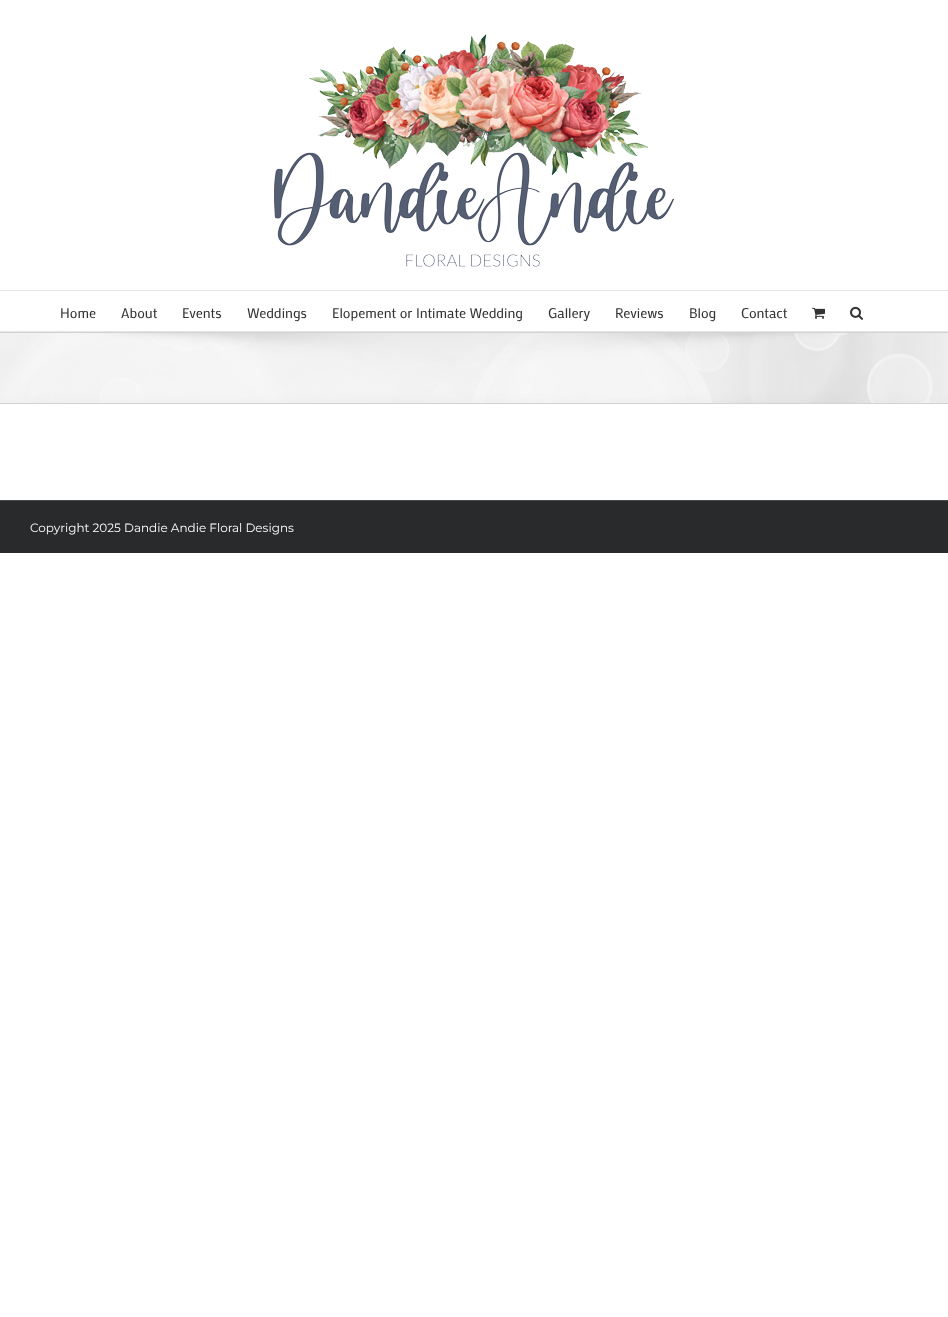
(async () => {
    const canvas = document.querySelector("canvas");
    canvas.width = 948;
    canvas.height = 1317;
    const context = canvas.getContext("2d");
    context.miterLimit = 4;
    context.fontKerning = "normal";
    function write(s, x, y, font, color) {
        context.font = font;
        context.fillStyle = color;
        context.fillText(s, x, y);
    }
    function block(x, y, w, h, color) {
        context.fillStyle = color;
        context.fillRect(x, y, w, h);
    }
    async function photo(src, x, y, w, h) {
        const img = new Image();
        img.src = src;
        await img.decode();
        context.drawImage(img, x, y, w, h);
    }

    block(0, 0, 948, 1317, "rgb(255, 255, 255)");
    block(0, 290, 948, 1, "rgb(229, 229, 229)");
    await photo("media/1.png", 274, 34, 400, 233);
    block(0, 331, 948, 1, "rgb(229, 229, 229)");
    write("Home", 60, 318, "14px Mako", "rgb(51, 51, 51)");
    write("About", 121, 318, "14px Mako", "rgb(51, 51, 51)");
    write("Events", 182, 318, "14px Mako", "rgb(51, 51, 51)");
    write("Weddings", 247, 318, "14px Mako", "rgb(51, 51, 51)");
    write("Elopement or Intimate Wedding", 332, 318, "14px Mako", "rgb(51, 51, 51)");
    write("Gallery", 548, 318, "14px Mako", "rgb(51, 51, 51)");
    write("Reviews", 615, 318, "14px Mako", "rgb(51, 51, 51)");
    write("Blog", 689, 318, "14px Mako", "rgb(51, 51, 51)");
    write("Contact", 741, 318, "14px Mako", "rgb(51, 51, 51)");
    await photo("media/2.png", 812, 307, 13, 12);
    await photo("media/3.png", 850, 306, 13, 14);
    block(0, 333, 948, 70, "rgb(246, 246, 246)");
    await photo("media/4.png", 0, 333, 948, 70);
    block(0, 332, 948, 1, "rgb(210, 211, 212)");
    block(0, 403, 948, 1, "rgb(210, 211, 212)");
    block(0, 501, 948, 52, "rgb(40, 42, 43)");
    block(0, 500, 948, 1, "rgb(75, 76, 77)");
    write("Copyright 2025 Dandie Andie Floral Designs", 30, 532, "12px Montserrat", "rgb(255, 255, 255)");
})();
